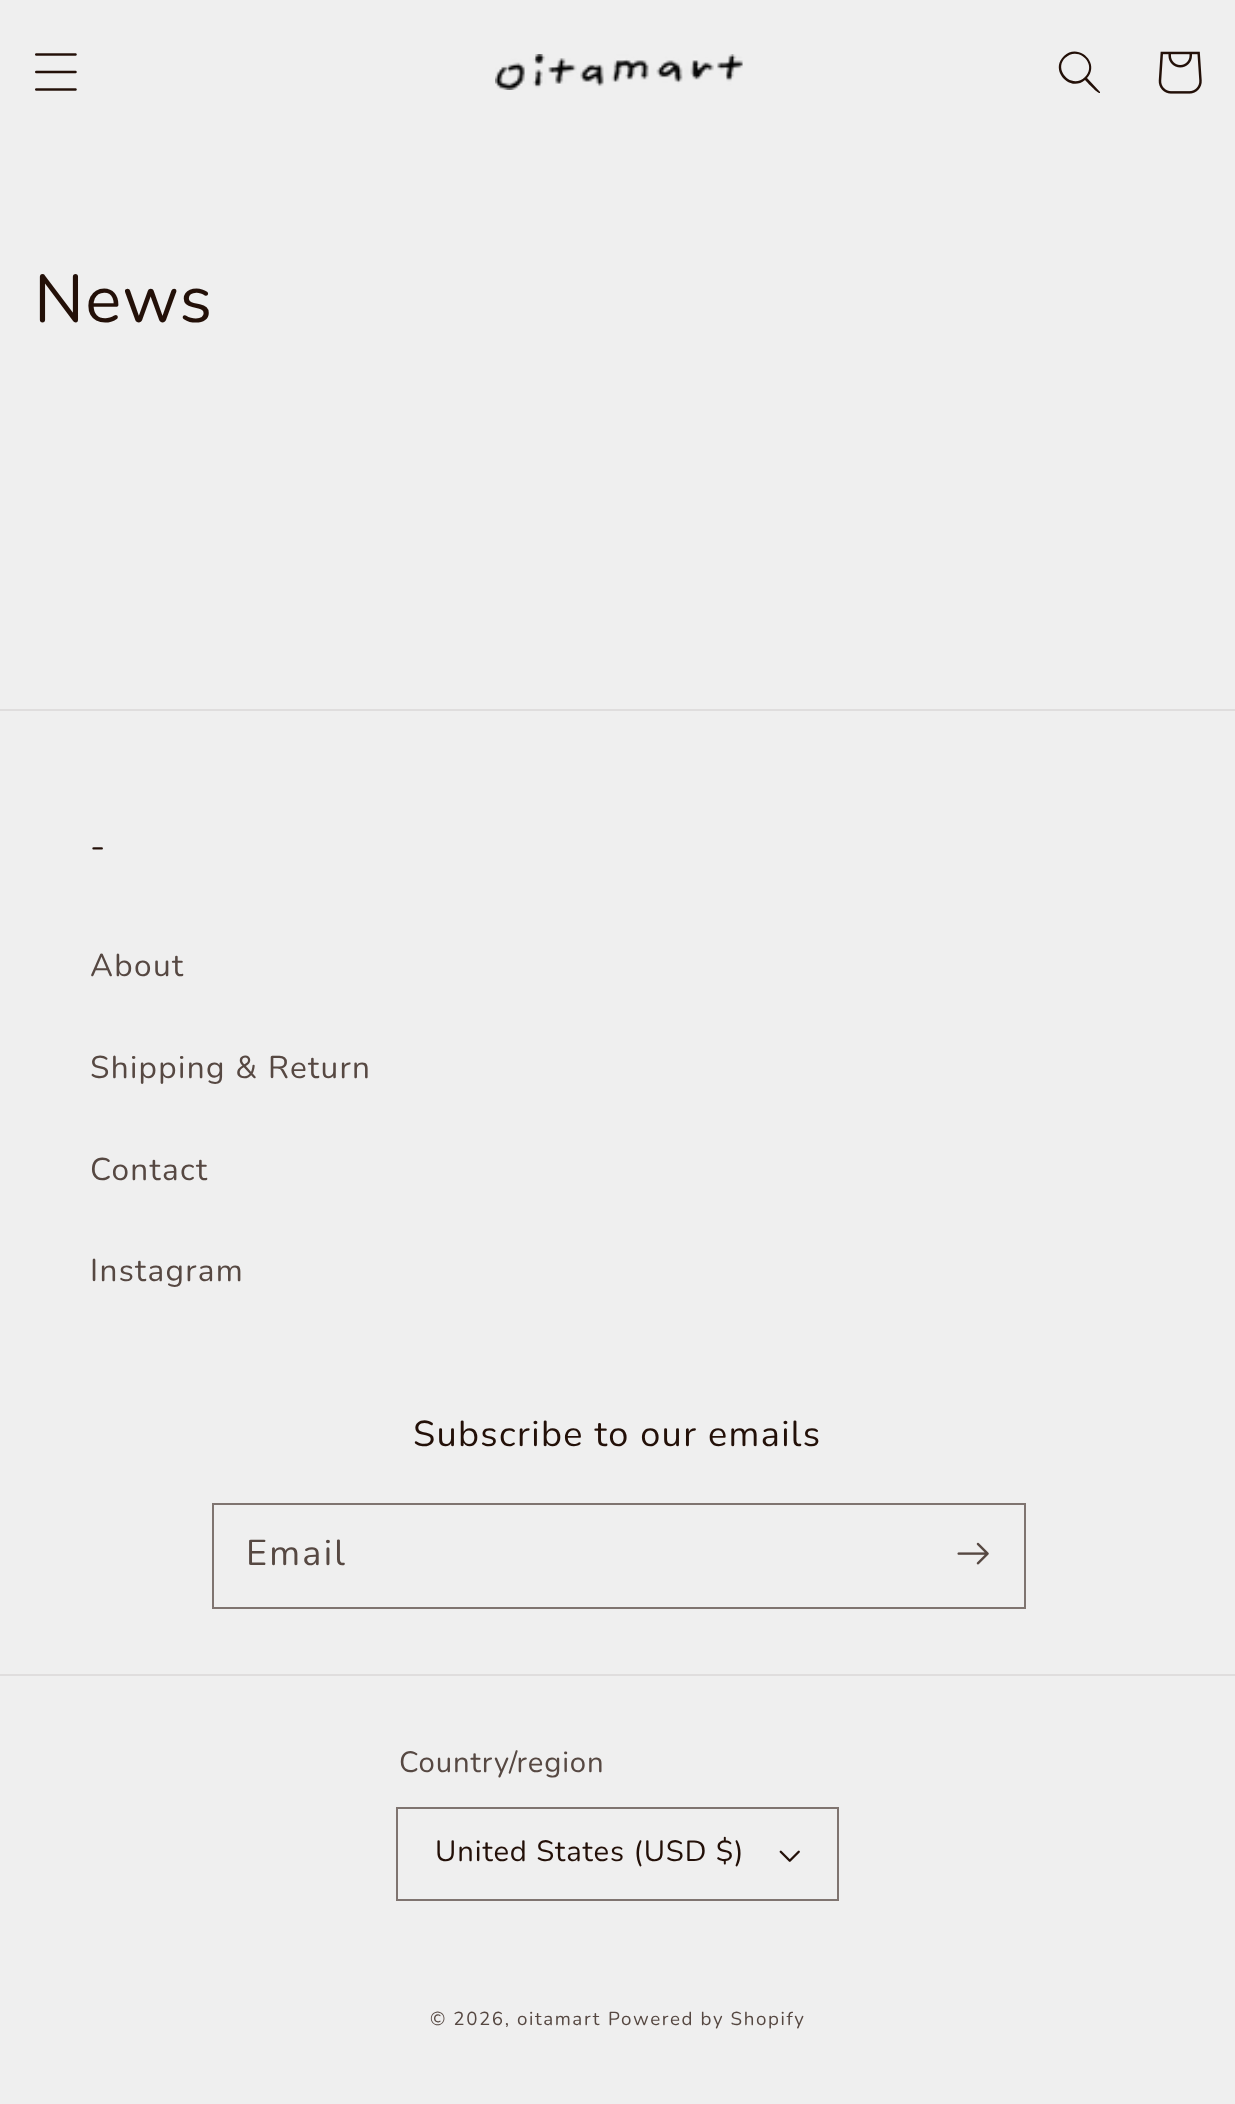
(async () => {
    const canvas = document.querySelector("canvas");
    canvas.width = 1235;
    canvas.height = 2104;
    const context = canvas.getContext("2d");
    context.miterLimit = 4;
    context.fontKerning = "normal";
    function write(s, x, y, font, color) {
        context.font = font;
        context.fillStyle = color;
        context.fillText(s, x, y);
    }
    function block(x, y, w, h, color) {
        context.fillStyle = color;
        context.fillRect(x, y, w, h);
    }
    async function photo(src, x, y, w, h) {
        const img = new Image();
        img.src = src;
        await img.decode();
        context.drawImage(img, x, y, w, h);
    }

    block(0, 0, 1235, 2104, "rgb(239, 239, 239)");
    await photo("media/1.png", 35, 53, 42, 38);
    await photo("media/2.png", 495, 54, 248, 36);
    context.fillStyle = "rgb(35, 16, 8)";
    context.beginPath();
    context.moveTo(1085, 77);
    context.bezierCurveTo(1072, 90, 1053, 70, 1065, 58);
    context.bezierCurveTo(1078, 45, 1098, 64, 1085, 77);
    context.closePath();
    context.moveTo(1085, 80);
    context.bezierCurveTo(1070, 93, 1049, 70, 1064, 56);
    context.bezierCurveTo(1078, 42, 1101, 63, 1087, 78);
    context.lineTo(1100, 92);
    context.lineTo(1100, 93);
    context.bezierCurveTo(1098, 94, 1087, 82, 1085, 80);
    context.closePath();
    context.fill("evenodd");
    await photo("media/3.png", 1158, 51, 44, 43);
    context.letterSpacing = "1.35px";
    write("News", 34, 322, "67.5px Nunito", "rgb(35, 16, 8)");
    block(0, 709, 1235, 2, "rgb(223, 221, 221)");
    write("-", 90, 858, "36px Nunito", "rgb(35, 16, 8)");
    write("About", 90, 976, "31.5px Nunito", "rgb(86, 72, 66)");
    write("Shipping & Return", 90, 1078, "31.5px Nunito", "rgb(86, 72, 66)");
    write("Contact", 90, 1180, "31.5px Nunito", "rgb(86, 72, 66)");
    write("Instagram", 90, 1281, "31.5px Nunito", "rgb(86, 72, 66)");
    write("Subscribe to our emails", 413, 1446, "36px Nunito", "rgb(35, 16, 8)");
    context.strokeStyle = "rgb(127, 116, 112)";
    context.lineWidth = 2;
    context.strokeRect(213, 1504, 812, 104);
    context.letterSpacing = "2.25px";
    write("Email", 246, 1565, "36px Nunito", "rgb(86, 72, 66)");
    await photo("media/4.png", 957, 1542, 32, 23);
    block(0, 1674, 1235, 2, "rgb(223, 221, 221)");
    context.letterSpacing = "0.9px";
    write("Country/region", 399, 1772, "29.25px Nunito", "rgb(86, 72, 66)");
    context.strokeRect(397, 1808, 441, 92);
    write("United States (USD $)", 435, 1861, "29.25px Nunito", "rgb(35, 16, 8)");
    await photo("media/5.png", 779, 1850, 21, 12);
    context.letterSpacing = "1.6px";
    write("© 2026, oitamart", 430, 2025, "18.75px Nunito", "rgb(86, 72, 66)");
    write("Powered by Shopify", 608, 2025, "18.75px Nunito", "rgb(86, 72, 66)");
})();
